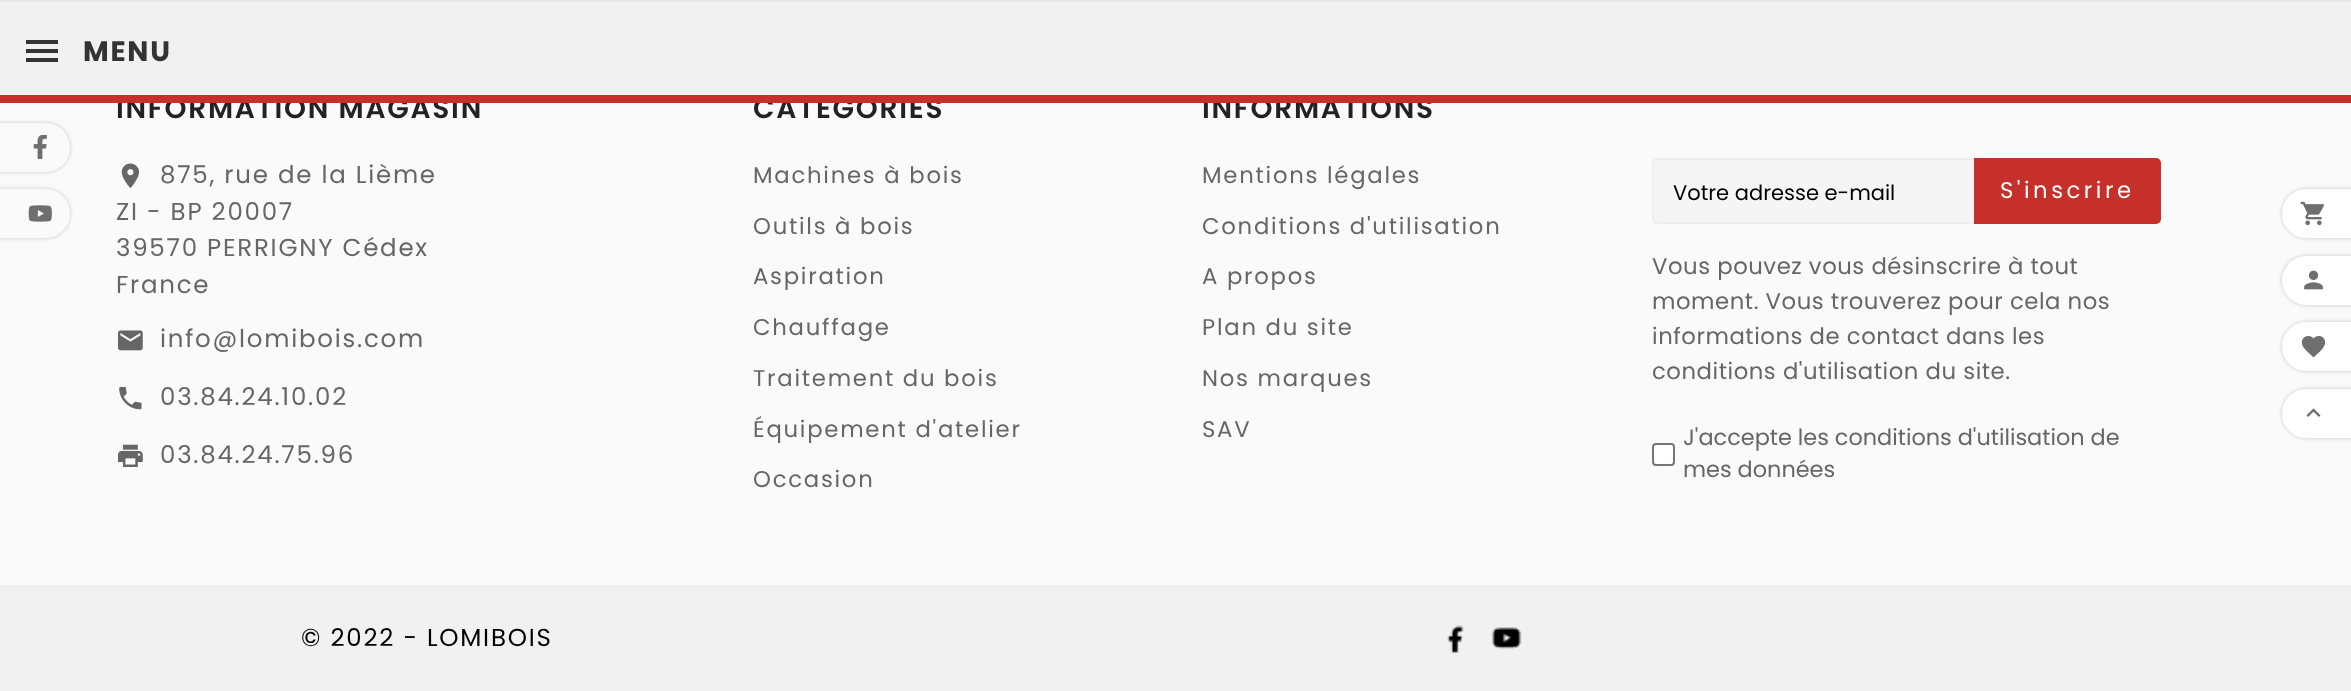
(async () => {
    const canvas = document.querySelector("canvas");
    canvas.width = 2351;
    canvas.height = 691;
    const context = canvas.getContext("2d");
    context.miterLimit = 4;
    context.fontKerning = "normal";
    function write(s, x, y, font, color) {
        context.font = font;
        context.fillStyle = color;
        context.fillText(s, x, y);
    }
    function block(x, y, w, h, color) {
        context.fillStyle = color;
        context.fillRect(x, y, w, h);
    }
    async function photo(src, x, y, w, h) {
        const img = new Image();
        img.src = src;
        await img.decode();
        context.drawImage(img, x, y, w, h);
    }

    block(0, 0, 2351, 691, "rgb(250, 250, 250)");
    context.letterSpacing = "1.75px";
    write("CATÉGORIES", 753, 118, "600 28px Poppins", "rgb(34, 34, 34)");
    block(0, 2, 2351, 93, "rgb(241, 241, 241)");
    block(0, 0, 2351, 2, "rgb(231, 231, 231)");
    write("INFORMATION MAGASIN", 116, 118, "600 28px Poppins", "rgb(34, 34, 34)");
    write("INFORMATIONS", 1202, 118, "600 28px Poppins", "rgb(34, 34, 34)");
    block(0, 95, 2351, 8, "rgb(198, 47, 42)");
    block(26, 40, 32, 4, "rgb(51, 51, 51)");
    block(26, 49, 32, 4, "rgb(51, 51, 51)");
    block(26, 58, 32, 4, "rgb(51, 51, 51)");
    write("MENU", 83, 61, "bold 28px Poppins", "rgb(51, 51, 51)");
    context.save();
    context.beginPath();
    context.moveTo(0, 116);
    context.lineTo(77, 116);
    context.lineTo(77, 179);
    context.lineTo(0, 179);
    context.closePath();
    context.moveTo(-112, 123);
    context.lineTo(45.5, 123);
    context.bezierCurveTo(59, 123, 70, 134, 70, 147.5);
    context.bezierCurveTo(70, 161, 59, 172, 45.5, 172);
    context.lineTo(-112, 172);
    context.closePath();
    context.clip("evenodd");
    context.fillStyle = "rgba(0, 0, 0, 0.2)";
    context.filter = "blur(2px)";
    context.beginPath();
    context.roundRect(-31, 123, 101, 49, 24.5);
    context.fill();
    context.filter = "none";
    context.restore();
    await photo("media/1.png", 33, 135, 14, 24);
    context.save();
    context.beginPath();
    context.moveTo(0, 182);
    context.lineTo(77, 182);
    context.lineTo(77, 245);
    context.lineTo(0, 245);
    context.closePath();
    context.moveTo(-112, 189);
    context.lineTo(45.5, 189);
    context.bezierCurveTo(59, 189, 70, 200, 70, 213.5);
    context.bezierCurveTo(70, 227, 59, 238, 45.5, 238);
    context.lineTo(-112, 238);
    context.closePath();
    context.clip("evenodd");
    context.fillStyle = "rgba(0, 0, 0, 0.2)";
    context.filter = "blur(2px)";
    context.beginPath();
    context.roundRect(-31, 189, 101, 49, 24.5);
    context.fill();
    context.filter = "none";
    context.restore();
    await photo("media/2.png", 28, 205, 24, 17);
    await photo("media/3.png", 121, 163, 18, 26);
    write("875, rue de la Lième", 160, 183, "24.5px Poppins", "rgb(102, 102, 102)");
    write("ZI - BP 20007", 116, 220, "24.5px Poppins", "rgb(102, 102, 102)");
    write("39570 PERRIGNY Cédex", 116, 256, "24.5px Poppins", "rgb(102, 102, 102)");
    write("France", 116, 293, "24.5px Poppins", "rgb(102, 102, 102)");
    await photo("media/4.png", 118, 330, 25, 21);
    write("info@lomibois.com", 160, 347, "24.5px Poppins", "rgb(102, 102, 102)");
    await photo("media/5.png", 119, 387, 23, 23);
    write("03.84.24.10.02", 160, 405, "24.5px Poppins", "rgb(102, 102, 102)");
    await photo("media/6.png", 118, 444, 25, 23);
    write("03.84.24.75.96", 160, 463, "24.5px Poppins", "rgb(102, 102, 102)");
    write("Machines à bois", 753, 183, "22.75px Poppins", "rgb(102, 102, 102)");
    write("Outils à bois", 753, 234, "22.75px Poppins", "rgb(102, 102, 102)");
    write("Aspiration", 753, 284, "22.75px Poppins", "rgb(102, 102, 102)");
    write("Chauffage", 753, 335, "22.75px Poppins", "rgb(102, 102, 102)");
    write("Traitement du bois", 753, 386, "22.75px Poppins", "rgb(102, 102, 102)");
    write("Équipement d'atelier", 753, 437, "22.75px Poppins", "rgb(102, 102, 102)");
    write("Occasion", 753, 487, "22.75px Poppins", "rgb(102, 102, 102)");
    write("Mentions légales", 1202, 183, "22.75px Poppins", "rgb(102, 102, 102)");
    write("Conditions d'utilisation", 1202, 234, "22.75px Poppins", "rgb(102, 102, 102)");
    write("A propos", 1202, 284, "22.75px Poppins", "rgb(102, 102, 102)");
    write("Plan du site", 1202, 335, "22.75px Poppins", "rgb(102, 102, 102)");
    write("Nos marques", 1202, 386, "22.75px Poppins", "rgb(102, 102, 102)");
    write("SAV", 1202, 437, "22.75px Poppins", "rgb(102, 102, 102)");
    context.fillStyle = "rgb(245, 245, 245)";
    context.beginPath();
    context.roundRect(1653, 159, 507, 64, 4);
    context.fill();
    context.strokeStyle = "rgb(238, 238, 238)";
    context.lineWidth = 2;
    context.stroke();
    context.letterSpacing = "0px";
    write("Votre adresse e-mail", 1673, 200, "21px Poppins", "rgb(0, 0, 0)");
    context.fillStyle = "rgb(198, 47, 42)";
    context.beginPath();
    context.roundRect(1974, 158, 187, 66, [0, 5, 5, 0]);
    context.fill();
    context.letterSpacing = "3.5px";
    write("S'inscrire", 2000, 198, "22.75px Poppins", "rgb(255, 255, 255)");
    context.letterSpacing = "0.55px";
    write("Vous pouvez vous désinscrire à tout", 1652, 274, "22.75px Poppins", "rgb(102, 102, 102)");
    write("moment. Vous trouverez pour cela nos", 1652, 309, "22.75px Poppins", "rgb(102, 102, 102)");
    write("informations de contact dans les", 1652, 344, "22.75px Poppins", "rgb(102, 102, 102)");
    write("conditions d'utilisation du site.", 1652, 379, "22.75px Poppins", "rgb(102, 102, 102)");
    context.fillStyle = "rgb(255, 255, 255)";
    context.beginPath();
    context.roundRect(1653, 444, 21, 21, 3);
    context.fill();
    context.strokeStyle = "rgb(118, 118, 118)";
    context.stroke();
    context.letterSpacing = "0px";
    write("J'accepte les conditions d'utilisation de", 1683, 445, "22.4px Poppins", "rgb(102, 102, 102)");
    write("mes données", 1683, 477, "22.4px Poppins", "rgb(102, 102, 102)");
    context.fillStyle = "rgba(0, 0, 0, 0.2)";
    context.filter = "blur(2px)";
    context.beginPath();
    context.roundRect(2282, 189, 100, 49, 24.5);
    context.fill();
    context.filter = "none";
    context.fillStyle = "rgb(255, 255, 255)";
    context.beginPath();
    context.moveTo(2306.5, 189);
    context.lineTo(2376, 189);
    context.lineTo(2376, 238);
    context.lineTo(2306.5, 238);
    context.bezierCurveTo(2293, 238, 2282, 227, 2282, 213.5);
    context.bezierCurveTo(2282, 200, 2293, 189, 2306.5, 189);
    context.closePath();
    context.fill();
    await photo("media/7.png", 2300, 201, 24, 25);
    context.fillStyle = "rgba(0, 0, 0, 0.2)";
    context.filter = "blur(2px)";
    context.beginPath();
    context.roundRect(2282, 256, 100, 49, 24.5);
    context.fill();
    context.filter = "none";
    context.fillStyle = "rgb(255, 255, 255)";
    context.beginPath();
    context.moveTo(2306.5, 256);
    context.lineTo(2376, 256);
    context.lineTo(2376, 305);
    context.lineTo(2306.5, 305);
    context.bezierCurveTo(2293, 305, 2282, 294, 2282, 280.5);
    context.bezierCurveTo(2282, 267, 2293, 256, 2306.5, 256);
    context.closePath();
    context.fill();
    await photo("media/8.png", 2304, 270, 19, 20);
    context.fillStyle = "rgba(0, 0, 0, 0.2)";
    context.filter = "blur(2px)";
    context.beginPath();
    context.roundRect(2282, 322, 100, 49, 24.5);
    context.fill();
    context.filter = "none";
    context.fillStyle = "rgb(255, 255, 255)";
    context.beginPath();
    context.moveTo(2306.5, 322);
    context.lineTo(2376, 322);
    context.lineTo(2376, 371);
    context.lineTo(2306.5, 371);
    context.bezierCurveTo(2293, 371, 2282, 360, 2282, 346.5);
    context.bezierCurveTo(2282, 333, 2293, 322, 2306.5, 322);
    context.closePath();
    context.fill();
    await photo("media/9.png", 2301, 336, 25, 22);
    context.fillStyle = "rgba(0, 0, 0, 0.2)";
    context.filter = "blur(2px)";
    context.beginPath();
    context.roundRect(2282, 389, 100, 49, 24.5);
    context.fill();
    context.filter = "none";
    context.fillStyle = "rgb(255, 255, 255)";
    context.beginPath();
    context.moveTo(2306.5, 389);
    context.lineTo(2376, 389);
    context.lineTo(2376, 438);
    context.lineTo(2306.5, 438);
    context.bezierCurveTo(2293, 438, 2282, 427, 2282, 413.5);
    context.bezierCurveTo(2282, 400, 2293, 389, 2306.5, 389);
    context.closePath();
    context.fill();
    await photo("media/10.png", 2306, 408, 15, 9);
    block(0, 587, 2351, 104, "rgb(241, 241, 241)");
    block(0, 585, 2351, 2, "rgb(238, 238, 238)");
    context.letterSpacing = "1.75px";
    write("© 2022 - LOMIBOIS", 301, 646, "24.5px Poppins", "rgb(0, 0, 0)");
    await photo("media/11.png", 1447, 625, 17, 28);
    await photo("media/12.png", 1492, 627, 30, 22);
})();
